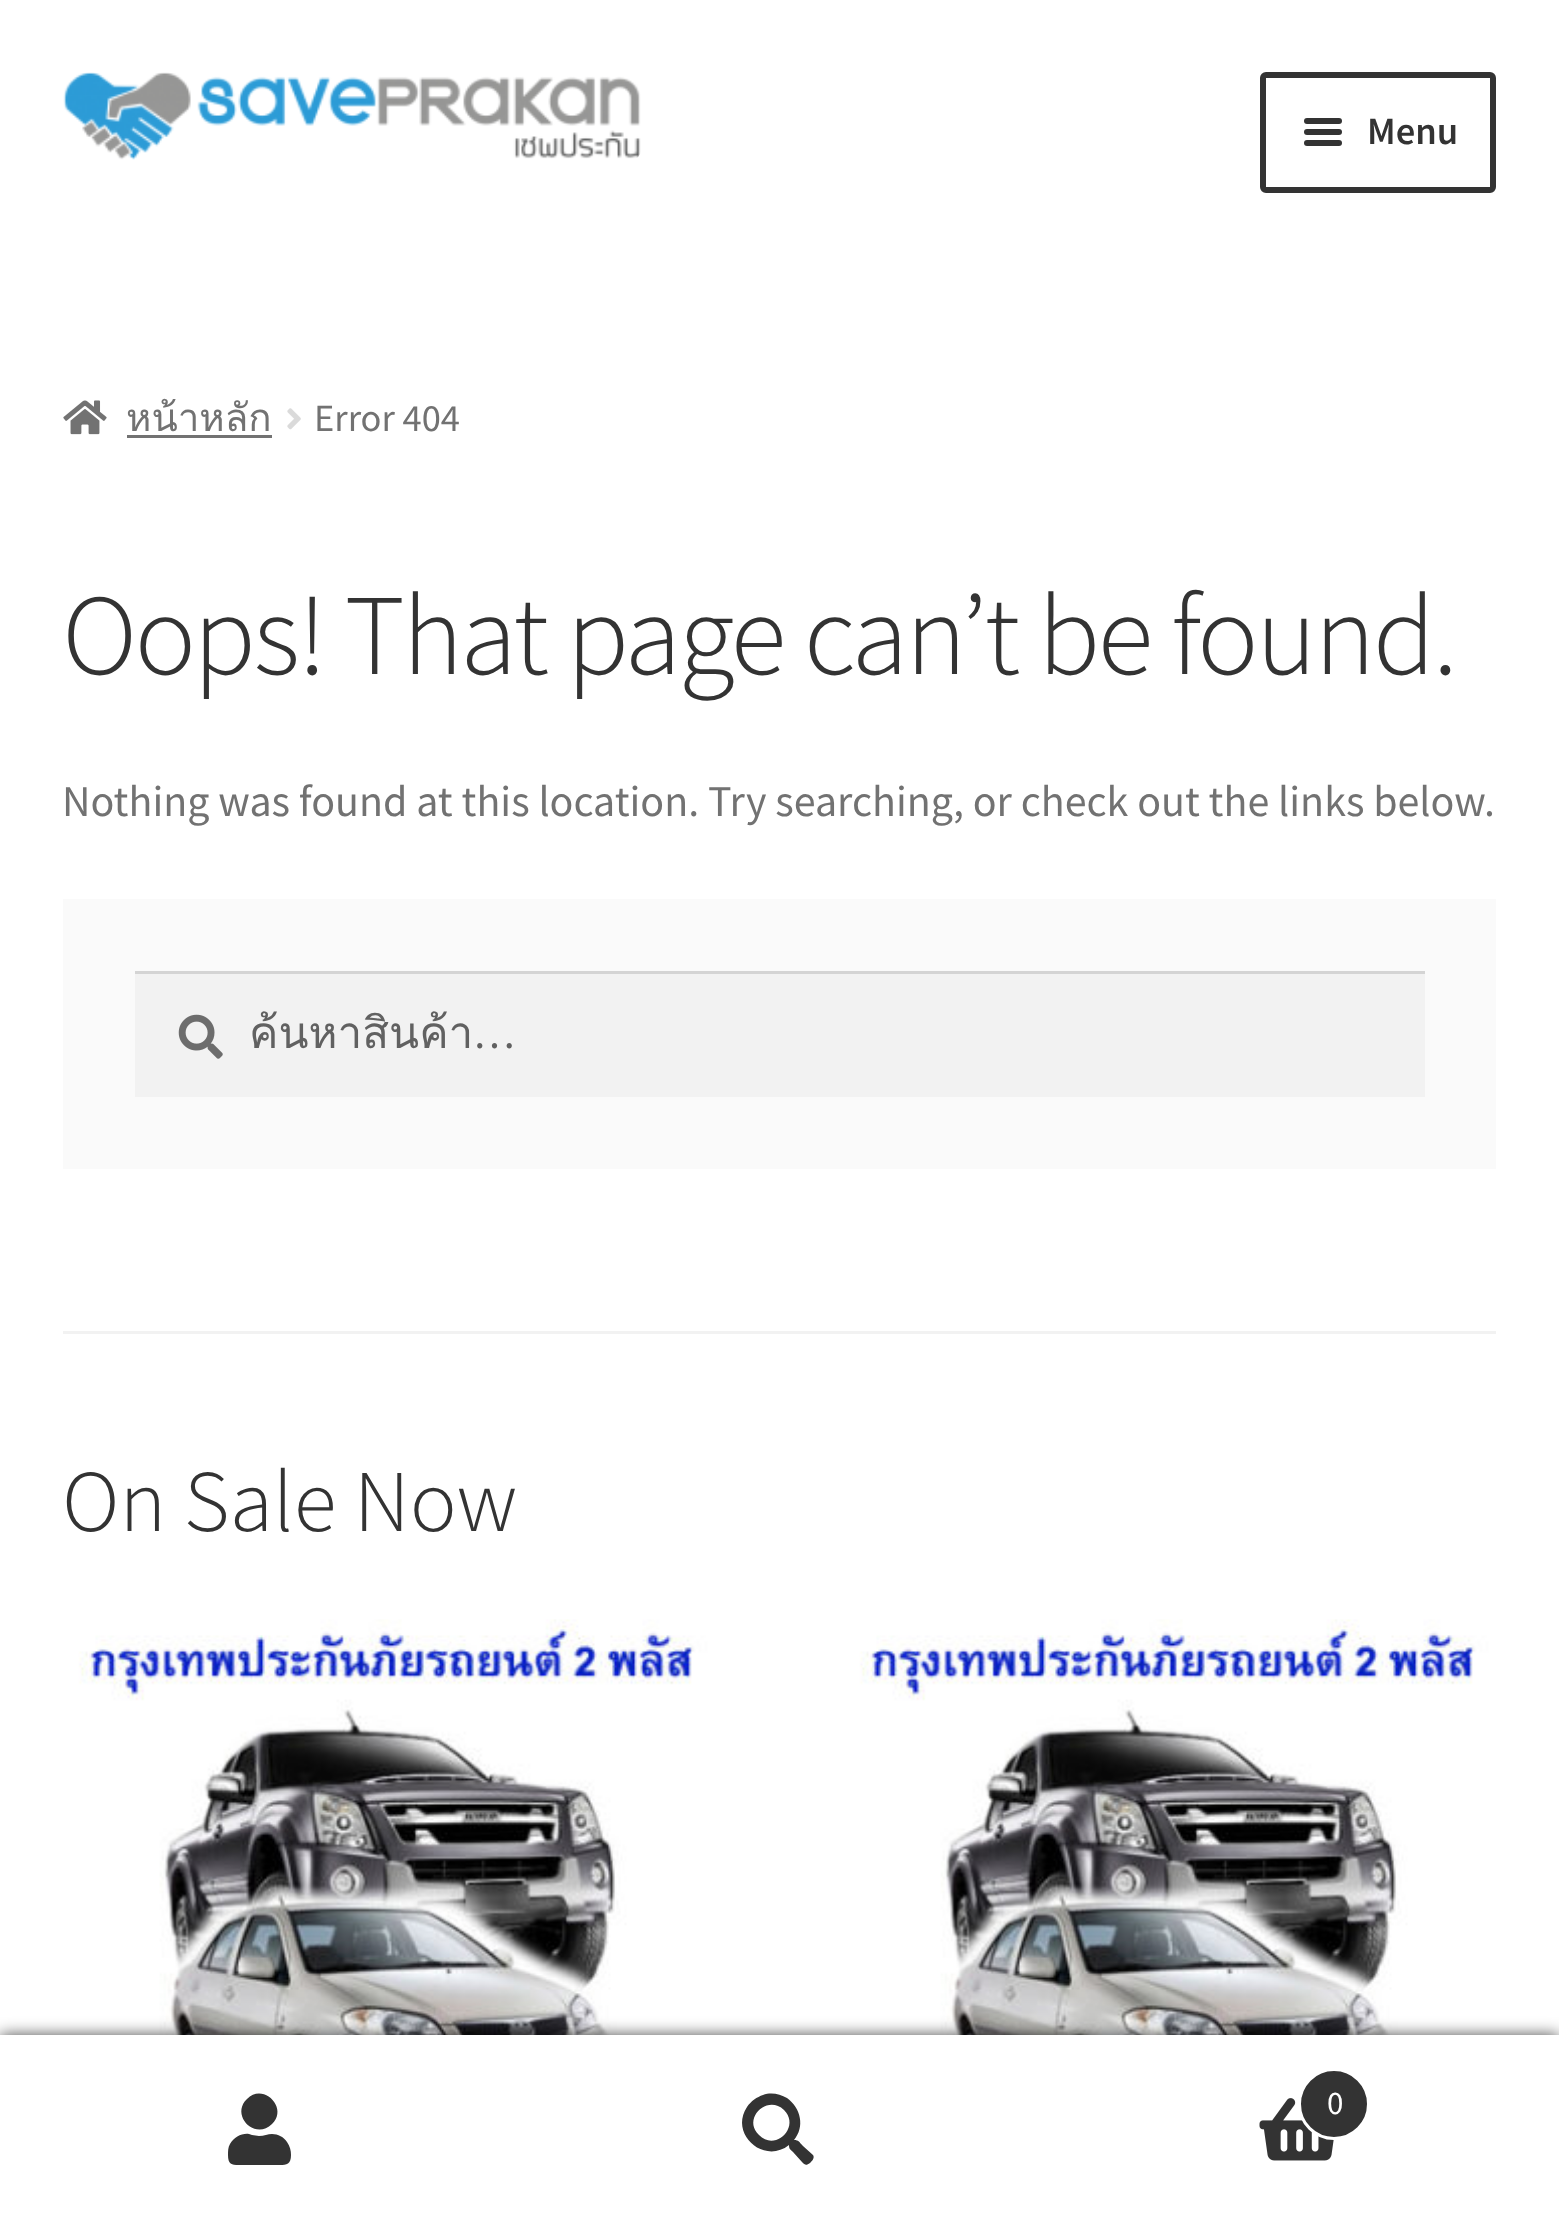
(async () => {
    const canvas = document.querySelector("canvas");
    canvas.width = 1559;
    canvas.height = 2224;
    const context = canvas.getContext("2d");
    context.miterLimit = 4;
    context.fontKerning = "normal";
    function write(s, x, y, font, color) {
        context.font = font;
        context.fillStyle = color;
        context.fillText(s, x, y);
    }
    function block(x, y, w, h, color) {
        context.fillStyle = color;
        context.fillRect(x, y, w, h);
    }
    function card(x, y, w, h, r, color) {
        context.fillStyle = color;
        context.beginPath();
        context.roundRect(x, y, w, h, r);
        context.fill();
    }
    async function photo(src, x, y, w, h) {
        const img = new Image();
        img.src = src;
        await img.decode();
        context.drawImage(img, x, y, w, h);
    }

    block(0, 0, 1559, 2224, "rgb(255, 255, 255)");
    await photo("media/1.png", 63, 72, 578, 88);
    context.beginPath();
    context.roundRect(1263, 75, 230, 115, 3);
    context.strokeStyle = "rgb(51, 51, 51)";
    context.lineWidth = 6;
    context.stroke();
    card(1304, 118, 38, 6, 3, "rgb(51, 51, 51)");
    card(1304, 129, 38, 6, 3, "rgb(51, 51, 51)");
    write("Menu", 1367, 144, "600 38.5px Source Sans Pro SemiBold", "rgb(51, 51, 51)");
    card(1304, 140, 38, 6, 3, "rgb(51, 51, 51)");
    await photo("media/2.png", 63, 400, 44, 35);
    write("หน้าหลัก", 126, 431, "38.5px Loma", "rgb(114, 114, 114)");
    block(127, 435, 145, 3, "rgb(114, 114, 114)");
    await photo("media/3.png", 287, 408, 14, 22);
    write("Error 404", 314, 431, "38.5px Source Sans Pro", "rgb(114, 114, 114)");
    context.letterSpacing = "-2.75px";
    write("Oops! That page can’t be found.", 62, 674, "300 115.25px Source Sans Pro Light", "rgb(51, 51, 51)");
    context.letterSpacing = "0px";
    write("Nothing was found at this location. Try searching, or check out the links below.", 62, 816, "44px Source Sans Pro", "rgb(114, 114, 114)");
    block(63, 899, 1433, 270, "rgb(250, 250, 250)");
    block(135, 974, 1290, 123, "rgb(242, 242, 242)");
    await photo("media/4.png", 178, 1014, 45, 45);
    block(135, 971, 1290, 3, "rgb(212, 212, 212)");
    context.save();
    context.beginPath();
    context.rect(248, 998, 1141, 69);
    context.clip();
    write("ค้นหาสินค้า", 249, 1048, "44px Loma", "rgb(97, 97, 97)");
    context.restore();
    write("…", 473, 1048, "44px Source Sans Pro", "rgb(97, 97, 97)");
    block(63, 1331, 1433, 3, "rgb(242, 242, 242)");
    write("On Sale Now", 62, 1531, "300 88px Source Sans Pro Light", "rgb(51, 51, 51)");
    await photo("media/5.png", 63, 1619, 652, 416);
    await photo("media/5.png", 844, 1619, 652, 416);
    context.fillStyle = "rgba(0, 0, 0, 0.7)";
    context.filter = "blur(8px)";
    context.beginPath();
    context.rect(0, 2035, 1559, 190);
    context.fill();
    context.filter = "none";
    block(0, 2035, 1559, 3, "rgb(255, 255, 255)");
    block(0, 2038, 1559, 186, "rgb(255, 255, 255)");
    context.fillStyle = "rgb(51, 51, 51)";
    context.beginPath();
    context.moveTo(272, 2124);
    context.bezierCurveTo(255, 2141, 230, 2115, 247, 2099);
    context.bezierCurveTo(263, 2082, 289, 2108, 272, 2124);
    context.closePath();
    context.moveTo(272, 2134);
    context.bezierCurveTo(278, 2134, 284, 2137, 287, 2142);
    context.bezierCurveTo(290, 2146, 291, 2151, 291, 2155);
    context.bezierCurveTo(291, 2166, 285, 2165, 276, 2165);
    context.lineTo(243, 2165);
    context.bezierCurveTo(233, 2165, 228, 2166, 228, 2155);
    context.bezierCurveTo(228, 2151, 228, 2147, 230, 2144);
    context.bezierCurveTo(234, 2137, 242, 2133, 249, 2134);
    context.lineTo(252, 2135);
    context.lineTo(259, 2136);
    context.bezierCurveTo(264, 2136, 268, 2134, 272, 2134);
    context.closePath();
    context.fill();
    context.beginPath();
    context.moveTo(813, 2155);
    context.bezierCurveTo(815, 2158, 812, 2161, 810, 2163);
    context.bezierCurveTo(806, 2166, 805, 2165, 802, 2162);
    context.lineTo(793, 2152);
    context.bezierCurveTo(790, 2149, 789, 2149, 789, 2145);
    context.bezierCurveTo(764, 2165, 729, 2134, 747, 2107);
    context.bezierCurveTo(751, 2101, 757, 2097, 763, 2095);
    context.bezierCurveTo(771, 2092, 780, 2094, 787, 2098);
    context.bezierCurveTo(801, 2108, 805, 2127, 794, 2140);
    context.bezierCurveTo(799, 2140, 799, 2142, 803, 2146);
    context.closePath();
    context.moveTo(759, 2135);
    context.bezierCurveTo(775, 2152, 801, 2127, 784, 2110);
    context.bezierCurveTo(767, 2094, 742, 2119, 759, 2135);
    context.closePath();
    context.fill();
    await photo("media/6.png", 1259, 2098, 75, 63);
    context.beginPath();
    context.arc(1334, 2104, 34.5, 0, Math.PI * 2);
    context.fill();
    context.strokeStyle = "rgb(255, 255, 255)";
    context.lineWidth = 3;
    context.stroke();
    write("0", 1327, 2114, "33px Source Sans Pro", "rgb(255, 255, 255)");
})();
